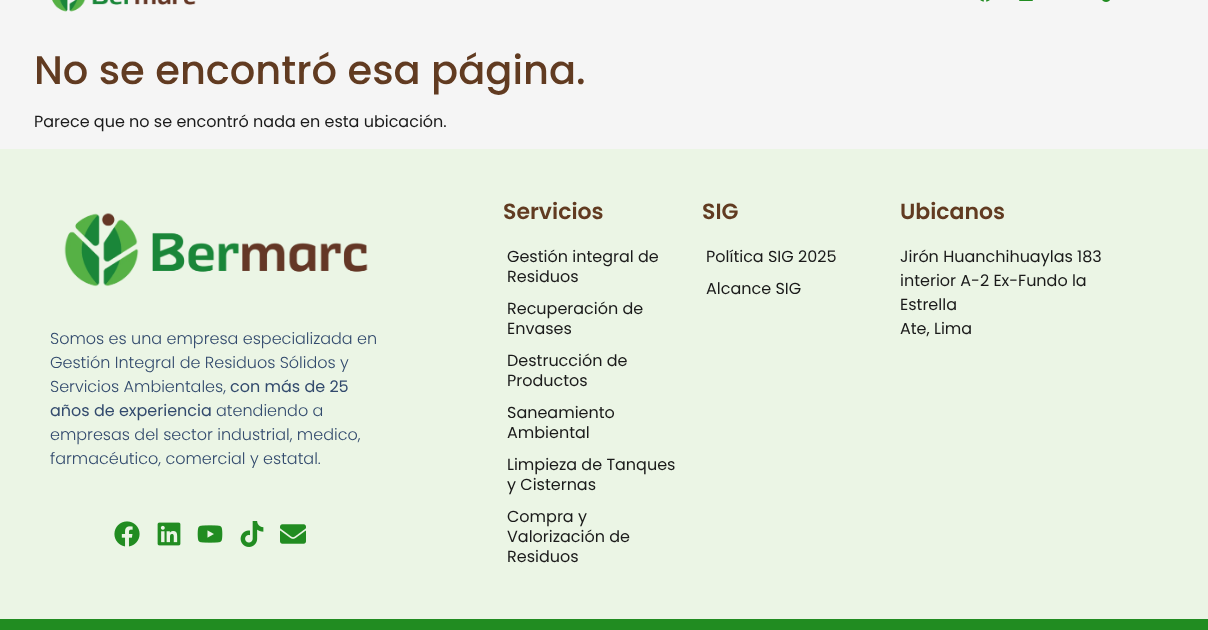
(async () => {
    const canvas = document.querySelector("canvas");
    canvas.width = 1208;
    canvas.height = 630;
    const context = canvas.getContext("2d");
    context.miterLimit = 4;
    context.fontKerning = "normal";
    function write(s, x, y, font, color) {
        context.font = font;
        context.fillStyle = color;
        context.fillText(s, x, y);
    }
    function block(x, y, w, h, color) {
        context.fillStyle = color;
        context.fillRect(x, y, w, h);
    }
    async function photo(src, x, y, w, h) {
        const img = new Image();
        img.src = src;
        await img.decode();
        context.drawImage(img, x, y, w, h);
    }

    block(0, 0, 1208, 630, "rgb(245, 245, 245)");
    await photo("media/1.png", 52, 0, 144, 12);
    await photo("media/2.png", 980, 0, 10, 2);
    await photo("media/3.png", 1019, 0, 14, 1);
    await photo("media/4.png", 1102, 0, 8, 2);
    write("No se encontró esa página.", 34, 84, "500 40px Poppins", "rgb(97, 59, 33)");
    write("Parece que no se encontró nada en esta ubicación.", 34, 127, "16px Poppins", "rgb(26, 26, 26)");
    block(0, 149, 1208, 470, "rgb(235, 245, 229)");
    write("Servicios", 503, 219, "600 22px Poppins", "rgb(97, 59, 33)");
    write("Gestión integral de", 507, 262, "16px Poppins", "rgb(26, 26, 26)");
    write("Residuos", 507, 282, "16px Poppins", "rgb(26, 26, 26)");
    write("Recuperación de", 507, 314, "16px Poppins", "rgb(26, 26, 26)");
    write("Envases", 507, 334, "16px Poppins", "rgb(26, 26, 26)");
    write("Destrucción de", 507, 366, "16px Poppins", "rgb(26, 26, 26)");
    write("Productos", 507, 386, "16px Poppins", "rgb(26, 26, 26)");
    write("Saneamiento", 507, 418, "16px Poppins", "rgb(26, 26, 26)");
    write("Ambiental", 507, 438, "16px Poppins", "rgb(26, 26, 26)");
    write("Limpieza de Tanques", 507, 470, "16px Poppins", "rgb(26, 26, 26)");
    write("y Cisternas", 507, 490, "16px Poppins", "rgb(26, 26, 26)");
    write("Compra y", 507, 522, "16px Poppins", "rgb(26, 26, 26)");
    write("Valorización de", 507, 542, "16px Poppins", "rgb(26, 26, 26)");
    write("Residuos", 507, 562, "16px Poppins", "rgb(26, 26, 26)");
    write("SIG", 702, 219, "600 22px Poppins", "rgb(97, 59, 33)");
    write("Política SIG 2025", 706, 262, "16px Poppins", "rgb(26, 26, 26)");
    write("Alcance SIG", 706, 294, "16px Poppins", "rgb(26, 26, 26)");
    write("Ubicanos", 900, 219, "600 22px Poppins", "rgb(97, 59, 33)");
    write("Jirón Huanchihuaylas 183", 900, 262, "16px Poppins", "rgb(26, 26, 26)");
    write("interior A-2 Ex-Fundo la", 900, 286, "16px Poppins", "rgb(26, 26, 26)");
    write("Estrella", 900, 310, "16px Poppins", "rgb(26, 26, 26)");
    write("Ate, Lima", 900, 334, "16px Poppins", "rgb(26, 26, 26)");
    await photo("media/5.png", 64, 213, 304, 74);
    write("Somos es una empresa especializada en", 50, 344, "300 16px Poppins", "rgb(50, 74, 109)");
    write("Gestión Integral de Residuos Sólidos y", 50, 368, "300 16px Poppins", "rgb(50, 74, 109)");
    write("Servicios Ambientales,", 50, 392, "300 16px Poppins", "rgb(50, 74, 109)");
    write("con más de 25", 230, 392, "16px Poppins", "rgb(50, 74, 109)");
    write("años de experiencia", 50, 416, "16px Poppins", "rgb(50, 74, 109)");
    write("atendiendo a", 216, 416, "300 16px Poppins", "rgb(50, 74, 109)");
    write("empresas del sector industrial, medico,", 50, 440, "300 16px Poppins", "rgb(50, 74, 109)");
    write("farmacéutico, comercial y estatal.", 50, 464, "300 16px Poppins", "rgb(50, 74, 109)");
    await photo("media/6.png", 114, 521, 26, 26);
    await photo("media/7.png", 157, 522, 24, 24);
    await photo("media/8.png", 197, 525, 26, 18);
    await photo("media/9.png", 240, 521, 24, 26);
    await photo("media/10.png", 280, 524, 26, 20);
    block(0, 619, 1208, 11, "rgb(33, 140, 33)");
})();
